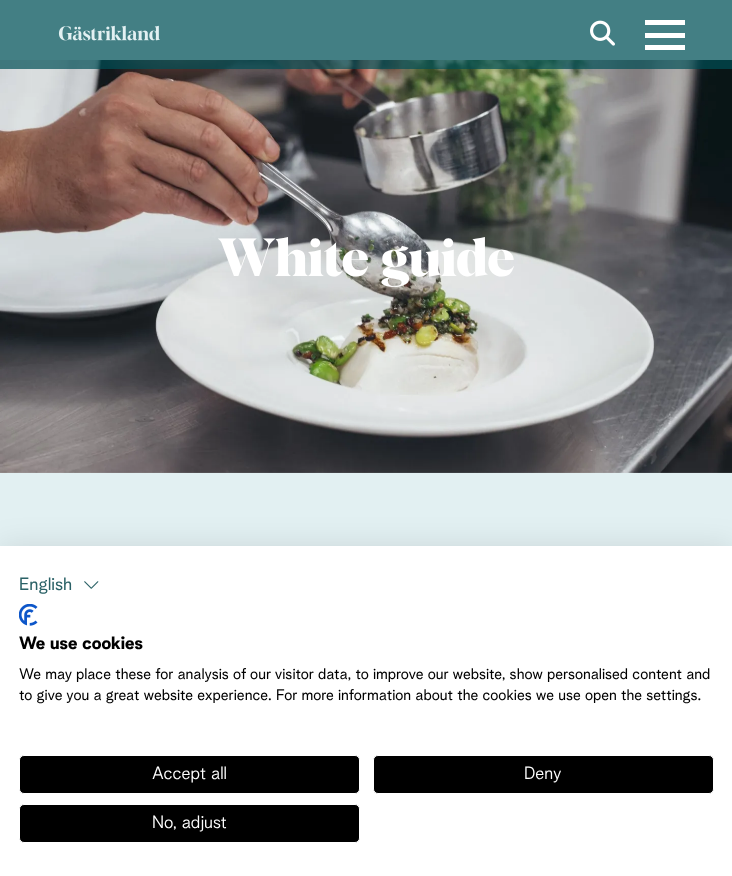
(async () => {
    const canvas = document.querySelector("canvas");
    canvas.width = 732;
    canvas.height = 876;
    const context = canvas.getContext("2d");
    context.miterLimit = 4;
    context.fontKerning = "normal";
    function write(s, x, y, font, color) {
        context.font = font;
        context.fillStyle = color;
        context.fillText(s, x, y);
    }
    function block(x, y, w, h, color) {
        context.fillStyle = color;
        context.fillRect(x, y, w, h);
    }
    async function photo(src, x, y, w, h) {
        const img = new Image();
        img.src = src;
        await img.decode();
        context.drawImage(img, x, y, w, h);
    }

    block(0, 0, 732, 876, "rgb(226, 240, 242)");
    await photo("media/3.png", 0, 60, 732, 413);
    block(0, 0, 732, 69, "rgba(0, 78, 86, 0.7)");
    await photo("media/1.png", 58, 25, 102, 16);
    await photo("media/2.png", 590, 20, 25, 26);
    block(645, 20, 40, 5, "rgb(255, 255, 255)");
    block(645, 33, 40, 5, "rgb(255, 255, 255)");
    block(645, 45, 40, 5, "rgb(255, 255, 255)");
    write("White guide", 218, 276, "bold 52.5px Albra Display", "rgb(255, 255, 255)");
    context.fillStyle = "rgba(0, 0, 0, 0.1)";
    context.filter = "blur(15px)";
    context.beginPath();
    context.rect(0, 546, 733, 330);
    context.fill();
    context.filter = "none";
    block(0, 546, 732, 330, "rgb(255, 255, 255)");
    write("English", 19, 590, "17.5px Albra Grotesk", "rgb(42, 97, 102)");
    await photo("media/4.png", 84, 581, 15, 8);
    await photo("media/5.png", 19, 604, 19, 22);
    write("We use cookies", 19, 649, "bold 17.5px Albra Grotesk", "rgb(0, 0, 0)");
    write("We may place these for analysis of our visitor data, to improve our website, show personalised content and", 19, 679, "15px Albra Grotesk", "rgb(0, 0, 0)");
    write("to give you a great website experience. For more information about the cookies we use open the settings.", 19, 700, "15px Albra Grotesk", "rgb(0, 0, 0)");
    context.beginPath();
    context.roundRect(19.5, 755.5, 340, 38, 4.5);
    context.fill();
    context.strokeStyle = "rgb(255, 255, 255)";
    context.stroke();
    write("Accept all", 152, 779, "300 17.5px Albra Grotesk", "rgb(255, 255, 255)");
    context.fillStyle = "rgb(0, 0, 0)";
    context.beginPath();
    context.roundRect(373.5, 755.5, 340, 38, 4.5);
    context.fill();
    context.stroke();
    write("Deny", 524, 779, "300 17.5px Albra Grotesk", "rgb(255, 255, 255)");
    context.fillStyle = "rgb(0, 0, 0)";
    context.beginPath();
    context.roundRect(19.5, 804.5, 340, 38, 4.5);
    context.fill();
    context.stroke();
    write("No, adjust", 152, 828, "300 17.5px Albra Grotesk", "rgb(255, 255, 255)");
})();
